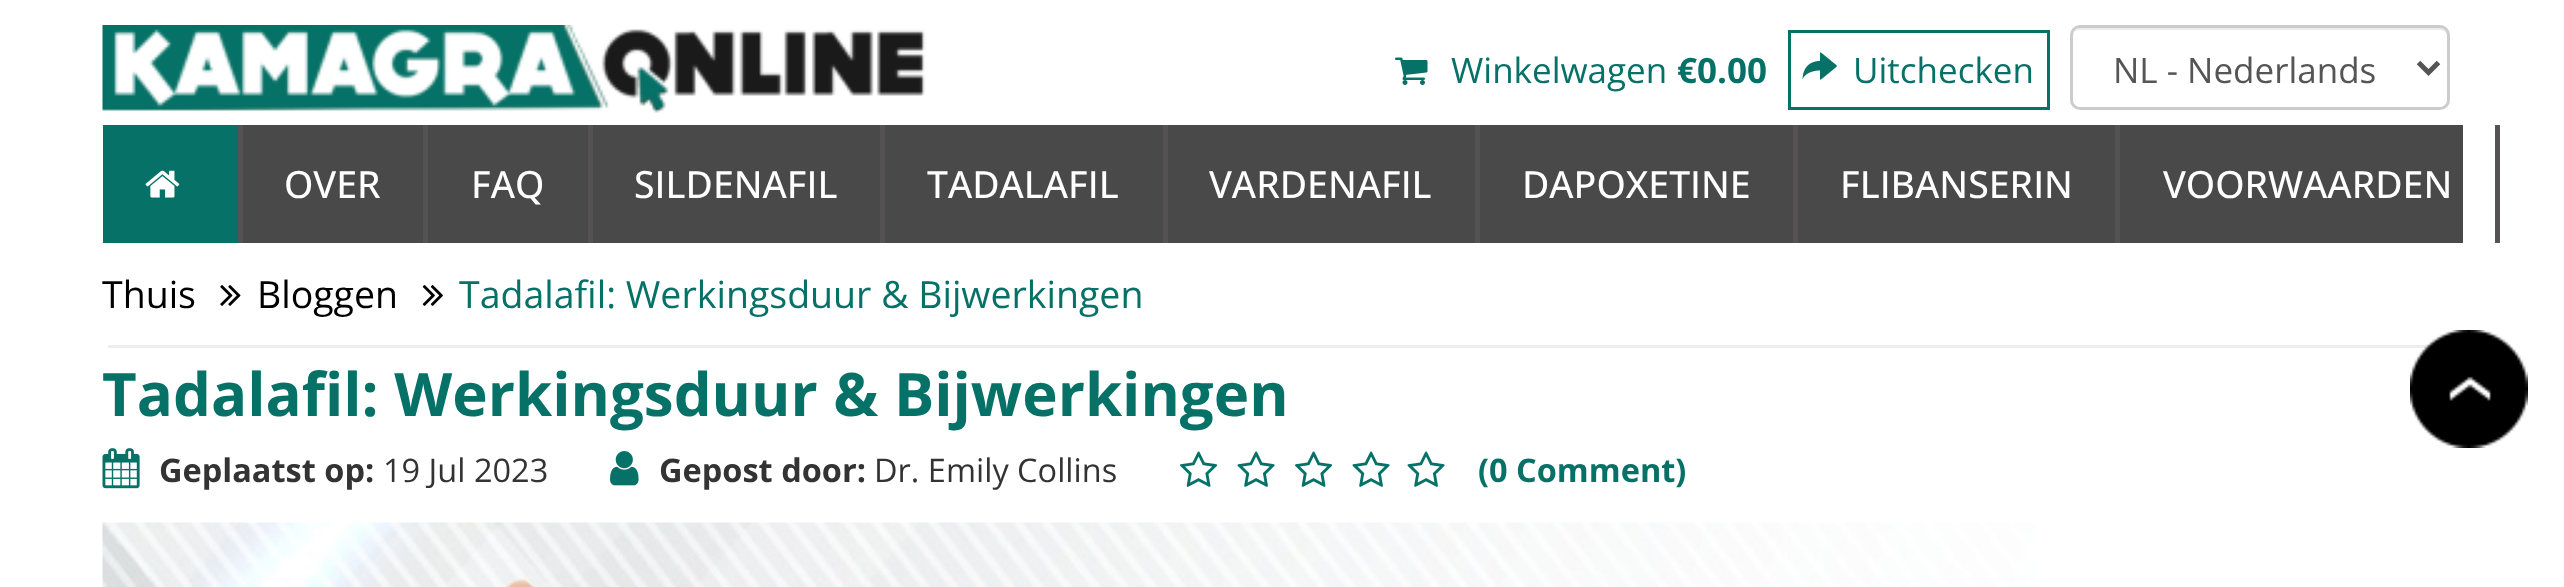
(async () => {
    const canvas = document.querySelector("canvas");
    canvas.width = 2564;
    canvas.height = 587;
    const context = canvas.getContext("2d");
    context.miterLimit = 4;
    context.fontKerning = "normal";
    function write(s, x, y, font, color) {
        context.font = font;
        context.fillStyle = color;
        context.fillText(s, x, y);
    }
    function block(x, y, w, h, color) {
        context.fillStyle = color;
        context.fillRect(x, y, w, h);
    }
    async function photo(src, x, y, w, h) {
        const img = new Image();
        img.src = src;
        await img.decode();
        context.drawImage(img, x, y, w, h);
    }

    block(0, 0, 2564, 587, "rgb(255, 255, 255)");
    await photo("media/1.png", 102, 25, 824, 88);
    await photo("media/2.png", 1395, 57, 33, 28);
    write("Winkelwagen", 1451, 83, "35px Open Sans", "rgb(6, 113, 103)");
    write("€0.00", 1677, 83, "bold 35px Open Sans", "rgb(6, 113, 103)");
    context.strokeStyle = "rgb(6, 113, 102)";
    context.lineWidth = 3;
    context.strokeRect(1789.5, 31.5, 259, 77);
    await photo("media/3.png", 1802, 52, 35, 28);
    write("Uitchecken", 1853, 83, "35px Open Sans", "rgb(6, 113, 103)");
    context.fillStyle = "rgb(236, 236, 236)";
    context.beginPath();
    context.moveTo(2080, 30);
    context.lineTo(2440, 30);
    context.bezierCurveTo(2444, 30, 2448, 33, 2448, 38);
    context.lineTo(2448, 36);
    context.bezierCurveTo(2448, 32, 2444, 28, 2440, 28);
    context.lineTo(2081, 28);
    context.bezierCurveTo(2078, 28, 2075, 30, 2073, 33);
    context.bezierCurveTo(2075, 31, 2078, 30, 2080, 30);
    context.closePath();
    context.fill();
    context.beginPath();
    context.roundRect(2071.5, 26.5, 377, 82, 8.5);
    context.strokeStyle = "rgb(204, 204, 204)";
    context.stroke();
    context.beginPath();
    context.moveTo(2418.5, 62.5);
    context.lineTo(2428.5, 72.5);
    context.lineTo(2438.5, 62.5);
    context.strokeStyle = "rgb(85, 85, 85)";
    context.lineWidth = 5;
    context.stroke();
    write("NL - Nederlands", 2113, 83, "35px Open Sans", "rgb(85, 85, 85)");
    block(243, 125, 2220, 118, "rgb(73, 73, 73)");
    block(103, 125, 135, 118, "rgb(6, 113, 102)");
    block(238, 125, 5, 118, "rgb(84, 82, 82)");
    await photo("media/4.png", 145, 170, 35, 28);
    block(423, 125, 5, 118, "rgb(84, 82, 82)");
    write("OVER", 284, 198, "500 37.5px Open Sans", "rgb(255, 255, 255)");
    block(588, 125, 5, 118, "rgb(84, 82, 82)");
    write("FAQ", 471, 198, "500 37.5px Open Sans", "rgb(255, 255, 255)");
    block(880, 125, 5, 118, "rgb(84, 82, 82)");
    write("SILDENAFIL", 634, 198, "500 37.5px Open Sans", "rgb(255, 255, 255)");
    block(1163, 125, 5, 118, "rgb(84, 82, 82)");
    write("TADALAFIL", 927, 198, "500 37.5px Open Sans", "rgb(255, 255, 255)");
    block(1475, 125, 5, 118, "rgb(84, 82, 82)");
    write("VARDENAFIL", 1209, 198, "500 37.5px Open Sans", "rgb(255, 255, 255)");
    block(1793, 125, 5, 118, "rgb(84, 82, 82)");
    write("DAPOXETINE", 1522, 198, "500 37.5px Open Sans", "rgb(255, 255, 255)");
    block(2115, 125, 5, 118, "rgb(84, 82, 82)");
    write("FLIBANSERIN", 1840, 198, "500 37.5px Open Sans", "rgb(255, 255, 255)");
    block(2495, 125, 5, 118, "rgb(84, 82, 82)");
    write("VOORWAARDEN", 2163, 198, "500 37.5px Open Sans", "rgb(255, 255, 255)");
    block(108, 345, 2326, 3, "rgb(238, 238, 238)");
    write("Thuis", 102, 308, "37.5px Open Sans", "rgb(0, 0, 0)");
    await photo("media/5.png", 220, 285, 21, 21);
    write("Bloggen", 257, 308, "37.5px Open Sans", "rgb(0, 0, 0)");
    await photo("media/6.png", 422, 285, 21, 21);
    write("Tadalafil: Werkingsduur & Bijwerkingen", 459, 308, "37.5px Open Sans", "rgb(6, 113, 103)");
    write("Tadalafil: Werkingsduur & Bijwerkingen", 102, 416, "bold 60px Open Sans", "rgb(6, 113, 103)");
    await photo("media/7.png", 102, 448, 38, 41);
    write("Geplaatst op:", 159, 482, "bold 32.5px Open Sans", "rgb(51, 51, 51)");
    write("19 Jul 2023", 383, 482, "32.5px Open Sans", "rgb(51, 51, 51)");
    await photo("media/8.png", 610, 451, 29, 35);
    write("Gepost door:", 659, 482, "bold 32.5px Open Sans", "rgb(51, 51, 51)");
    write("Dr. Emily Collins", 874, 482, "32.5px Open Sans", "rgb(51, 51, 51)");
    await photo("media/9.png", 1180, 451, 38, 36);
    await photo("media/10.png", 1237, 451, 38, 36);
    await photo("media/9.png", 1295, 451, 38, 36);
    await photo("media/10.png", 1352, 451, 38, 36);
    await photo("media/10.png", 1407, 451, 38, 36);
    write("(0 Comment)", 1478, 482, "bold 32.5px Open Sans", "rgb(6, 113, 103)");
    await photo("media/11.png", 102, 522, 1934, 65);
    await photo("media/12.png", 2410, 330, 118, 118);
})();
